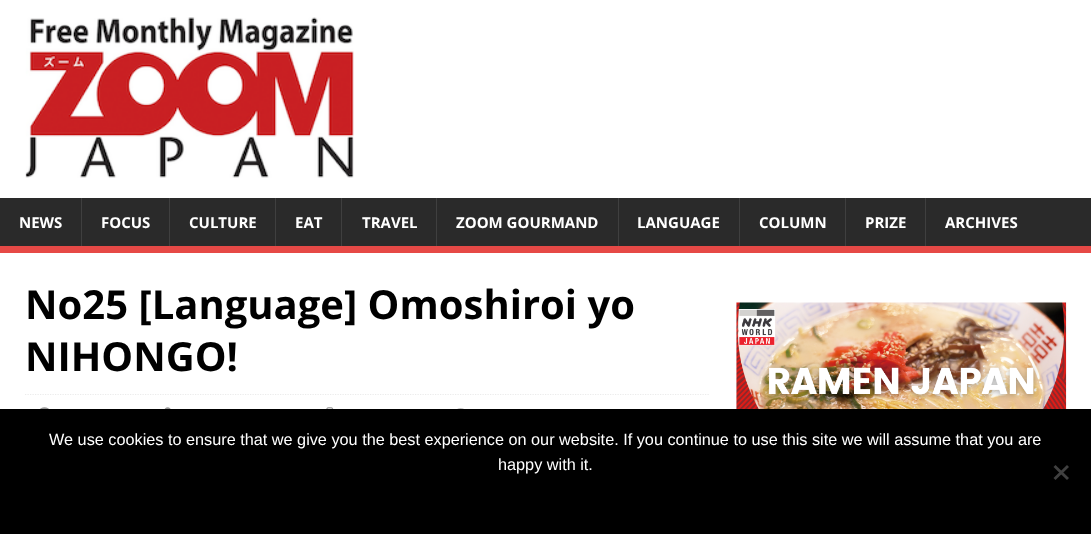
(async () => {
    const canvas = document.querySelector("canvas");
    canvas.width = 1091;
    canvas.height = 534;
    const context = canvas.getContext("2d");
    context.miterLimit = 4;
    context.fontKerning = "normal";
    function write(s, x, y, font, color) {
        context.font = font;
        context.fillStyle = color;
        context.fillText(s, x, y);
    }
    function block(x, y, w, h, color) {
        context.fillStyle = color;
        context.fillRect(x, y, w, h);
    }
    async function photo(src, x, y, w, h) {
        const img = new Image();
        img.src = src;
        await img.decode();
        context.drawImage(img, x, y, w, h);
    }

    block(0, 0, 1091, 534, "rgb(255, 255, 255)");
    await photo("media/1.png", 25, 17, 329, 161);
    block(0, 198, 1091, 48, "rgb(42, 42, 42)");
    block(0, 246, 1091, 7, "rgb(230, 73, 70)");
    write("NEWS", 19, 228, "bold 15px Open Sans", "rgb(255, 255, 255)");
    block(81, 198, 1, 48, "rgb(63, 63, 63)");
    write("FOCUS", 101, 228, "bold 15px Open Sans", "rgb(255, 255, 255)");
    block(169, 198, 1, 48, "rgb(63, 63, 63)");
    write("CULTURE", 189, 228, "bold 15px Open Sans", "rgb(255, 255, 255)");
    block(275, 198, 1, 48, "rgb(63, 63, 63)");
    write("EAT", 295, 228, "bold 15px Open Sans", "rgb(255, 255, 255)");
    block(341, 198, 1, 48, "rgb(63, 63, 63)");
    write("TRAVEL", 362, 228, "bold 15px Open Sans", "rgb(255, 255, 255)");
    block(436, 198, 1, 48, "rgb(63, 63, 63)");
    write("ZOOM GOURMAND", 456, 228, "bold 15px Open Sans", "rgb(255, 255, 255)");
    block(618, 198, 1, 48, "rgb(63, 63, 63)");
    write("LANGUAGE", 637, 228, "bold 15px Open Sans", "rgb(255, 255, 255)");
    block(739, 198, 1, 48, "rgb(63, 63, 63)");
    write("COLUMN", 759, 228, "bold 15px Open Sans", "rgb(255, 255, 255)");
    block(845, 198, 1, 48, "rgb(63, 63, 63)");
    write("PRIZE", 865, 228, "bold 15px Open Sans", "rgb(255, 255, 255)");
    block(925, 198, 1, 48, "rgb(63, 63, 63)");
    write("ARCHIVES", 945, 228, "bold 15px Open Sans", "rgb(255, 255, 255)");
    write("No25 [Language] Omoshiroi yo", 25, 319, "bold 40px Open Sans", "rgb(0, 0, 0)");
    write("NIHONGO!", 25, 371, "bold 40px Open Sans", "rgb(0, 0, 0)");
    context.beginPath();
    context.moveTo(25, 394.5);
    context.lineTo(710, 394.5);
    context.strokeStyle = "rgb(235, 235, 235)";
    context.lineWidth = 1.2;
    context.setLineDash([1.25, 1.25]);
    context.stroke();
    await photo("media/2.png", 40, 407, 9, 2);
    await photo("media/3.png", 164, 407, 7, 2);
    await photo("media/4.png", 326, 407, 8, 2);
    await photo("media/5.png", 457, 408, 7, 1);
    await photo("media/6.png", 736, 302, 331, 107);
    block(0, 409, 1091, 125, "rgb(0, 0, 0)");
    write("We use cookies to ensure that we give you the best experience on our website. If you continue to use this site we will assume that you are", 49, 445, "16.25px Liberation Sans", "rgb(255, 255, 255)");
    write("happy with it.", 498, 470, "16.25px Liberation Sans", "rgb(255, 255, 255)");
    context.fillStyle = "rgb(64, 64, 64)";
    context.beginPath();
    context.moveTo(1067, 465);
    context.lineTo(1069, 467);
    context.lineTo(1055.5, 480);
    context.lineTo(1053.5, 478);
    context.closePath();
    context.fill();
    context.beginPath();
    context.moveTo(1053.5, 467);
    context.lineTo(1055.5, 465);
    context.lineTo(1069, 478);
    context.lineTo(1067, 480);
    context.closePath();
    context.fill();
})();
